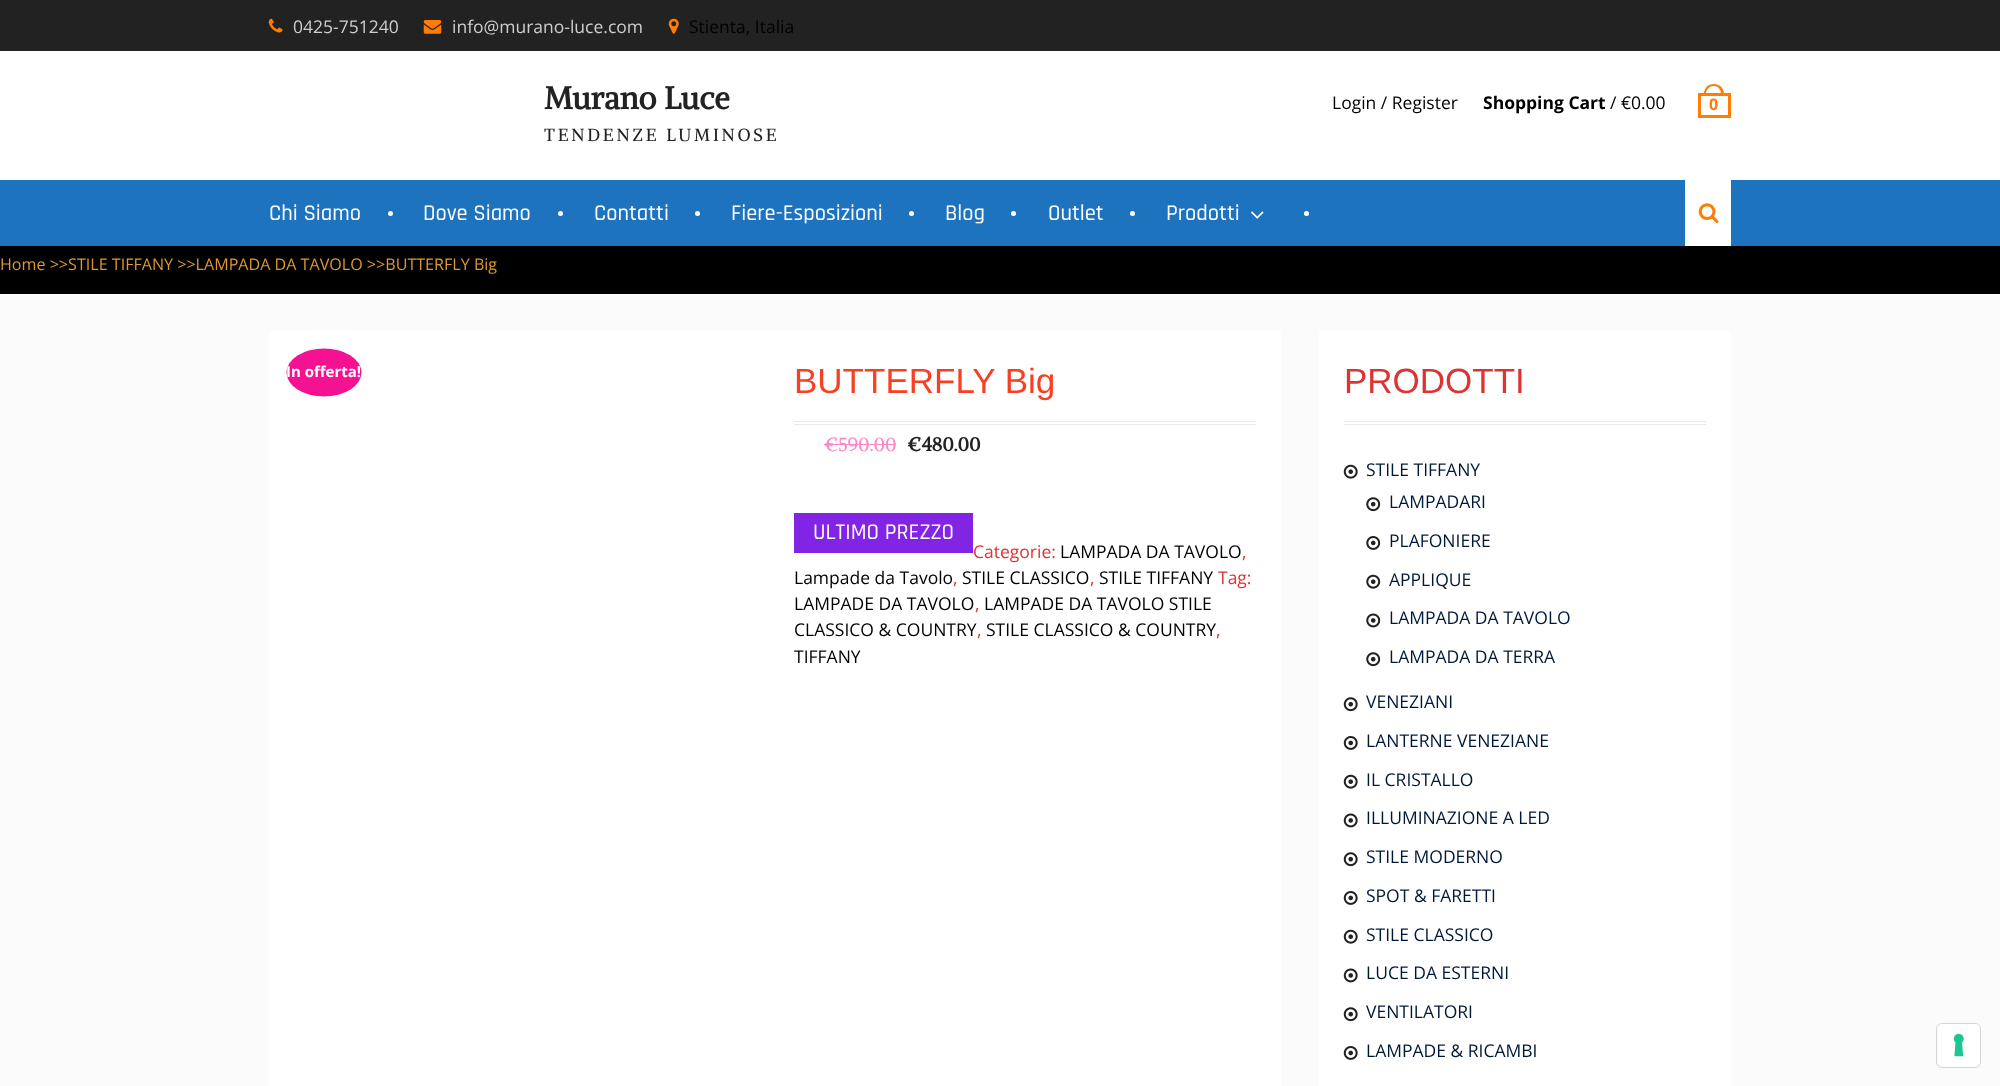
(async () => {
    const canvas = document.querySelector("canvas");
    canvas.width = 2000;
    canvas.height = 1086;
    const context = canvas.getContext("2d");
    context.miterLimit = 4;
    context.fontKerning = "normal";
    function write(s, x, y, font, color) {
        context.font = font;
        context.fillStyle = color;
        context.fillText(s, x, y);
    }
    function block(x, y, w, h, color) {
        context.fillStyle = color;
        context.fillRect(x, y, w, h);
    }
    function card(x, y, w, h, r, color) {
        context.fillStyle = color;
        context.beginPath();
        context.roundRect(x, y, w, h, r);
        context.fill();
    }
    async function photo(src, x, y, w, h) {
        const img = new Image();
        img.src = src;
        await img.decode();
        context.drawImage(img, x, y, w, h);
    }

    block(0, 0, 2000, 1086, "rgb(0, 0, 0)");
    block(0, 0, 2000, 51, "rgb(34, 34, 34)");
    await photo("media/1.png", 268, 18, 15, 15);
    write("0425-751240", 293, 33, "17.5px Open Sans", "rgb(206, 206, 206)");
    await photo("media/2.png", 423, 20, 19, 14);
    write("info@murano-luce.com", 452, 33, "17.5px Open Sans", "rgb(206, 206, 206)");
    await photo("media/3.png", 668, 18, 11, 16);
    write("Stienta, Italia", 689, 33, "17.5px Open Sans", "rgb(0, 0, 0)");
    block(0, 51, 2000, 129, "rgb(255, 255, 255)");
    write("Murano Luce", 544, 109, "bold 31.25px Alike", "rgb(34, 34, 34)");
    context.letterSpacing = "2.75px";
    write("TENDENZE LUMINOSE", 544, 141, "17.5px Alike", "rgb(34, 34, 34)");
    context.letterSpacing = "0px";
    write("Login / Register", 1332, 109, "17.5px Open Sans", "rgb(0, 0, 0)");
    write("Shopping Cart", 1483, 109, "bold 17.5px Open Sans", "rgb(0, 0, 0)");
    write("/ €0.00", 1610, 109, "17.5px Open Sans", "rgb(0, 0, 0)");
    context.fillStyle = "rgb(255, 125, 6)";
    context.beginPath();
    context.moveTo(1714, 84);
    context.bezierCurveTo(1719.5, 84, 1724, 88, 1724, 94);
    context.lineTo(1704, 94);
    context.bezierCurveTo(1704, 88, 1708, 84, 1714, 84);
    context.closePath();
    context.moveTo(1714, 86);
    context.bezierCurveTo(1718, 86, 1721, 89.5, 1721, 94);
    context.lineTo(1706, 94);
    context.bezierCurveTo(1706, 89.5, 1709.5, 86, 1714, 86);
    context.closePath();
    context.fill("evenodd");
    context.strokeStyle = "rgb(255, 125, 6)";
    context.lineWidth = 3;
    context.strokeRect(1699.5, 94.5, 30, 22);
    write("0", 1709, 110, "bold 16px Open Sans", "rgb(255, 125, 6)");
    block(0, 180, 2000, 66, "rgb(30, 115, 190)");
    write("Chi Siamo", 269, 220, "500 22.5px Rajdhani", "rgb(255, 255, 255)");
    context.beginPath();
    context.arc(390.5, 213.5, 2.5, 0, Math.PI * 2);
    context.fill();
    write("Dove Siamo", 423, 220, "500 22.5px Rajdhani", "rgb(255, 255, 255)");
    context.beginPath();
    context.arc(560.5, 213.5, 2.5, 0, Math.PI * 2);
    context.fill();
    write("Contatti", 594, 220, "500 22.5px Rajdhani", "rgb(255, 255, 255)");
    context.beginPath();
    context.arc(697.5, 213.5, 2.5, 0, Math.PI * 2);
    context.fill();
    write("Fiere-Esposizioni", 731, 220, "500 22.5px Rajdhani", "rgb(255, 255, 255)");
    context.beginPath();
    context.arc(911.5, 213.5, 2.5, 0, Math.PI * 2);
    context.fill();
    write("Blog", 945, 220, "500 22.5px Rajdhani", "rgb(255, 255, 255)");
    context.beginPath();
    context.arc(1013.5, 213.5, 2.5, 0, Math.PI * 2);
    context.fill();
    write("Outlet", 1048, 220, "500 22.5px Rajdhani", "rgb(255, 255, 255)");
    context.beginPath();
    context.arc(1132.5, 213.5, 2.5, 0, Math.PI * 2);
    context.fill();
    write("Prodotti", 1166, 220, "500 22.5px Rajdhani", "rgb(255, 255, 255)");
    await photo("media/4.png", 1251, 211, 13, 8);
    context.beginPath();
    context.arc(1306.5, 213.5, 2.5, 0, Math.PI * 2);
    context.fill();
    block(1685, 180, 46, 66, "rgb(255, 255, 255)");
    await photo("media/5.png", 1698, 203, 21, 20);
    write("Home >>STILE TIFFANY >>LAMPADA DA TAVOLO >>BUTTERFLY Big", 0, 270, "16.1px Open Sans", "rgb(221, 153, 51)");
    block(0, 294, 2000, 792, "rgb(251, 251, 251)");
    block(269, 331, 1012, 755, "rgb(255, 255, 255)");
    context.fillStyle = "rgb(244, 17, 146)";
    context.beginPath();
    context.ellipse(324, 372.5, 37.5, 24, 0, 0, Math.PI * 2);
    context.fill();
    write("In offerta!", 286, 377, "bold 15px Open Sans", "rgb(255, 255, 255)");
    block(794, 421, 462, 1, "rgb(235, 233, 235)");
    block(794, 424, 462, 1, "rgb(235, 233, 235)");
    write("BUTTERFLY Big", 794, 393, "35px Liberation Sans", "rgb(249, 63, 34)");
    write("€590.00", 824, 451, "19px Alike", "rgb(250, 136, 201)");
    block(824, 444, 72, 1, "rgb(250, 136, 201)");
    write("€480.00", 907, 451, "bold 19px Alike", "rgb(34, 34, 34)");
    block(794, 513, 179, 40, "rgb(130, 36, 227)");
    write("ULTIMO PREZZO", 813, 539, "500 22.5px Rajdhani", "rgb(255, 255, 255)");
    write("Categorie:", 973, 558, "17.5px Open Sans", "rgb(221, 51, 51)");
    write("LAMPADA DA TAVOLO", 1060, 558, "17.5px Open Sans", "rgb(0, 0, 0)");
    write(",", 1242, 558, "17.5px Open Sans", "rgb(221, 51, 51)");
    write("Lampade da Tavolo", 794, 584, "17.5px Open Sans", "rgb(0, 0, 0)");
    write(",", 953, 584, "17.5px Open Sans", "rgb(221, 51, 51)");
    write("STILE CLASSICO", 962, 584, "17.5px Open Sans", "rgb(0, 0, 0)");
    write(",", 1090, 584, "17.5px Open Sans", "rgb(221, 51, 51)");
    write("STILE TIFFANY", 1099, 584, "17.5px Open Sans", "rgb(0, 0, 0)");
    write("Tag:", 1218, 584, "17.5px Open Sans", "rgb(221, 51, 51)");
    write("LAMPADE DA TAVOLO", 794, 610, "17.5px Open Sans", "rgb(0, 0, 0)");
    write(",", 975, 610, "17.5px Open Sans", "rgb(221, 51, 51)");
    write("LAMPADE DA TAVOLO STILE", 984, 610, "17.5px Open Sans", "rgb(0, 0, 0)");
    write("CLASSICO & COUNTRY", 794, 636, "17.5px Open Sans", "rgb(0, 0, 0)");
    write(",", 977, 636, "17.5px Open Sans", "rgb(221, 51, 51)");
    write("STILE CLASSICO & COUNTRY", 986, 636, "17.5px Open Sans", "rgb(0, 0, 0)");
    write(",", 1216, 636, "17.5px Open Sans", "rgb(221, 51, 51)");
    write("TIFFANY", 794, 663, "17.5px Open Sans", "rgb(0, 0, 0)");
    block(1319, 331, 412, 755, "rgb(255, 255, 255)");
    block(1344, 421, 362, 1, "rgb(235, 233, 235)");
    block(1344, 424, 362, 1, "rgb(235, 233, 235)");
    write("PRODOTTI", 1344, 393, "35px Liberation Sans", "rgb(221, 51, 51)");
    await photo("media/6.png", 1343, 464, 15, 15);
    write("STILE TIFFANY", 1366, 476, "17.5px Open Sans", "rgb(0, 24, 55)");
    await photo("media/7.png", 1366, 497, 15, 15);
    write("LAMPADARI", 1389, 508, "17.5px Open Sans", "rgb(0, 24, 55)");
    await photo("media/8.png", 1366, 536, 15, 14);
    write("PLAFONIERE", 1389, 547, "17.5px Open Sans", "rgb(0, 24, 55)");
    await photo("media/9.png", 1366, 574, 15, 15);
    write("APPLIQUE", 1389, 586, "17.5px Open Sans", "rgb(0, 24, 55)");
    await photo("media/10.png", 1366, 613, 15, 15);
    write("LAMPADA DA TAVOLO", 1389, 624, "17.5px Open Sans", "rgb(0, 24, 55)");
    await photo("media/7.png", 1366, 652, 15, 15);
    write("LAMPADA DA TERRA", 1389, 663, "17.5px Open Sans", "rgb(0, 24, 55)");
    await photo("media/11.png", 1343, 697, 15, 15);
    write("VENEZIANI", 1366, 708, "17.5px Open Sans", "rgb(0, 24, 55)");
    await photo("media/12.png", 1343, 736, 15, 14);
    write("LANTERNE VENEZIANE", 1366, 747, "17.5px Open Sans", "rgb(0, 24, 55)");
    await photo("media/6.png", 1343, 774, 15, 15);
    write("IL CRISTALLO", 1366, 786, "17.5px Open Sans", "rgb(0, 24, 55)");
    await photo("media/13.png", 1343, 813, 15, 15);
    write("ILLUMINAZIONE A LED", 1366, 824, "17.5px Open Sans", "rgb(0, 24, 55)");
    await photo("media/11.png", 1343, 852, 15, 15);
    write("STILE MODERNO", 1366, 863, "17.5px Open Sans", "rgb(0, 24, 55)");
    await photo("media/12.png", 1343, 891, 15, 14);
    write("SPOT & FARETTI", 1366, 902, "17.5px Open Sans", "rgb(0, 24, 55)");
    await photo("media/6.png", 1343, 929, 15, 15);
    write("STILE CLASSICO", 1366, 941, "17.5px Open Sans", "rgb(0, 24, 55)");
    await photo("media/13.png", 1343, 968, 15, 15);
    write("LUCE DA ESTERNI", 1366, 979, "17.5px Open Sans", "rgb(0, 24, 55)");
    await photo("media/11.png", 1343, 1007, 15, 15);
    write("VENTILATORI", 1366, 1018, "17.5px Open Sans", "rgb(0, 24, 55)");
    await photo("media/12.png", 1343, 1046, 15, 14);
    write("LAMPADE & RICAMBI", 1366, 1057, "17.5px Open Sans", "rgb(0, 24, 55)");
    context.beginPath();
    context.roundRect(1936.5, 1023.5, 44, 44, 5.5);
    context.strokeStyle = "rgb(213, 213, 213)";
    context.lineWidth = 1;
    context.stroke();
    card(1938, 1024, 42, 42, 5, "rgb(255, 255, 255)");
    await photo("media/14.png", 1953, 1033, 11, 24);
})();
